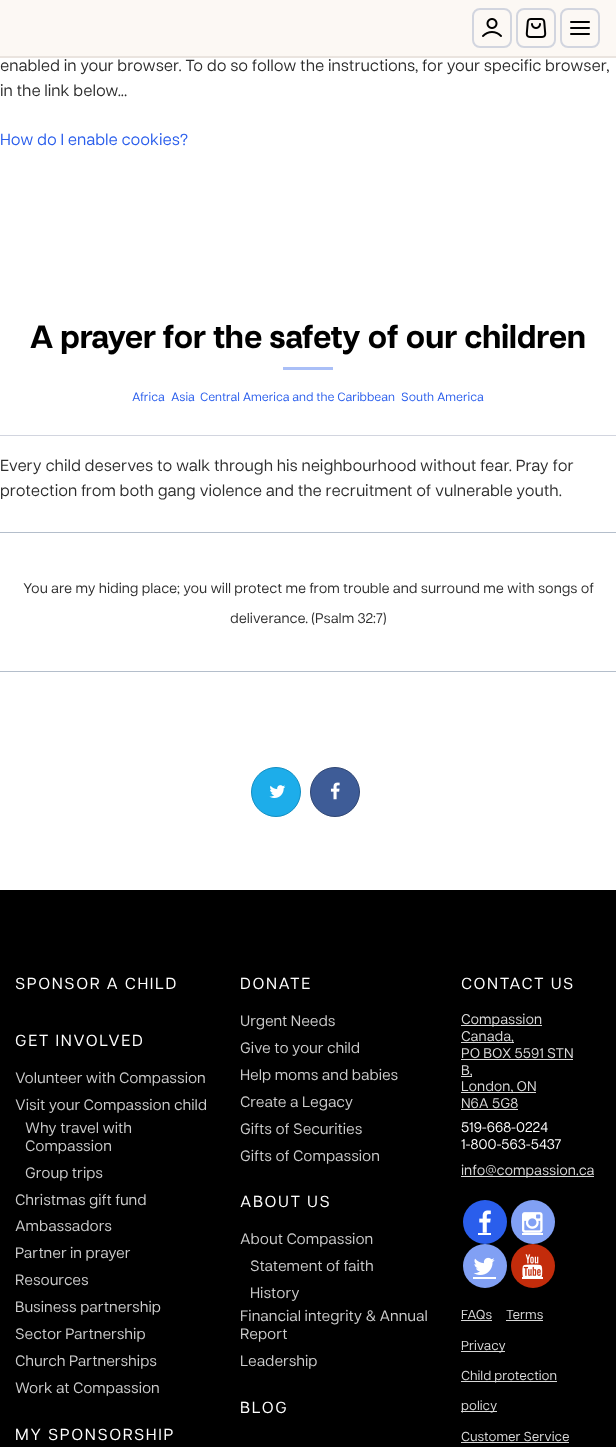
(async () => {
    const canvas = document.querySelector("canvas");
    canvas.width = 616;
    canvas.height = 1447;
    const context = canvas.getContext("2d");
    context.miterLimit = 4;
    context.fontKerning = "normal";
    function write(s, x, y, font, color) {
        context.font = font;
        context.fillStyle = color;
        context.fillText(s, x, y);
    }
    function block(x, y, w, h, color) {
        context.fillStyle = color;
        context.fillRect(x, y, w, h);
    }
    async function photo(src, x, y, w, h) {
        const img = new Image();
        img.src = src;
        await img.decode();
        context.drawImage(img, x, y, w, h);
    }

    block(0, 0, 616, 1447, "rgb(255, 255, 255)");
    block(0, 0, 616, 56, "rgb(252, 248, 244)");
    block(0, 56, 616, 2, "rgb(234, 228, 223)");
    context.beginPath();
    context.roundRect(473, 9, 38, 38, 7);
    context.strokeStyle = "rgb(210, 213, 223)";
    context.lineWidth = 2;
    context.stroke();
    await photo("media/1.png", 482, 18, 20, 19);
    context.beginPath();
    context.roundRect(517, 9, 38, 38, 7);
    context.stroke();
    await photo("media/2.png", 525, 18, 22, 20);
    context.beginPath();
    context.roundRect(561, 9, 38, 38, 7);
    context.stroke();
    context.beginPath();
    context.moveTo(571, 28);
    context.lineTo(589, 28);
    context.moveTo(571, 22);
    context.lineTo(589, 22);
    context.moveTo(571, 34);
    context.lineTo(589, 34);
    context.strokeStyle = "rgb(0, 0, 0)";
    context.lineCap = "round";
    context.lineJoin = "round";
    context.stroke();
    write("enabled in your browser. To do so follow the instructions, for your specific browser,", 0, 71, "16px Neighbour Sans", "rgb(45, 45, 45)");
    write("in the link below...", 0, 96, "16px Neighbour Sans", "rgb(45, 45, 45)");
    write("How do I enable cookies?", 0, 145, "16px Neighbour Sans", "rgb(42, 94, 236)");
    block(0, 435, 616, 1, "rgb(210, 213, 223)");
    write("A prayer for the safety of our children", 30, 348, "bold 32px Neighbour Sans", "rgb(0, 0, 0)");
    block(283, 367, 50, 3, "rgb(170, 191, 247)");
    write("Africa", 132, 401, "12px Neighbour Sans", "rgb(42, 94, 236)");
    write("Asia", 171, 401, "12px Neighbour Sans", "rgb(42, 94, 236)");
    write("Central America and the Caribbean", 200, 401, "12px Neighbour Sans", "rgb(42, 94, 236)");
    write("South America", 401, 401, "12px Neighbour Sans", "rgb(42, 94, 236)");
    write("Every child deserves to walk through his neighbourhood without fear. Pray for", 0, 471, "16px Neighbour Sans", "rgb(45, 45, 45)");
    write("protection from both gang violence and the recruitment of vulnerable youth.", 0, 496, "16px Neighbour Sans", "rgb(45, 45, 45)");
    block(0, 532, 616, 1, "rgb(180, 190, 203)");
    write("You are my hiding place; you will protect me from trouble and surround me with songs of", 23, 593, "14px Neighbour Sans", "rgb(45, 45, 45)");
    write("deliverance. (Psalm 32:7)", 230, 623, "14px Neighbour Sans", "rgb(45, 45, 45)");
    block(0, 671, 616, 1, "rgb(180, 190, 203)");
    context.fillStyle = "rgb(29, 173, 234)";
    context.beginPath();
    context.arc(276, 792, 24.5, 0, Math.PI * 2);
    context.fill();
    context.strokeStyle = "rgb(18, 142, 194)";
    context.lineWidth = 1;
    context.stroke();
    await photo("media/3.png", 269, 785, 17, 13);
    context.fillStyle = "rgb(62, 92, 151)";
    context.beginPath();
    context.arc(335, 792, 24.5, 0, Math.PI * 2);
    context.fill();
    context.strokeStyle = "rgb(47, 70, 115)";
    context.stroke();
    await photo("media/4.png", 330, 782, 10, 18);
    block(0, 890, 616, 557, "rgb(0, 0, 0)");
    context.letterSpacing = "1.6px";
    write("SPONSOR A CHILD", 15, 989, "16px Neighbour Sans", "rgb(255, 255, 255)");
    write("GET INVOLVED", 15, 1046, "16px Neighbour Sans", "rgb(255, 255, 255)");
    context.letterSpacing = "0px";
    write("Volunteer with Compassion", 15, 1083, "15px Neighbour Sans", "rgb(204, 204, 204)");
    write("Visit your Compassion child", 15, 1110, "15px Neighbour Sans", "rgb(204, 204, 204)");
    write("Why travel with", 25, 1133, "15px Neighbour Sans", "rgb(204, 204, 204)");
    write("Compassion", 25, 1151, "15px Neighbour Sans", "rgb(204, 204, 204)");
    write("Group trips", 25, 1178, "15px Neighbour Sans", "rgb(204, 204, 204)");
    write("Christmas gift fund", 15, 1205, "15px Neighbour Sans", "rgb(204, 204, 204)");
    write("Ambassadors", 15, 1231, "15px Neighbour Sans", "rgb(204, 204, 204)");
    write("Partner in prayer", 15, 1258, "15px Neighbour Sans", "rgb(204, 204, 204)");
    write("Resources", 15, 1285, "15px Neighbour Sans", "rgb(204, 204, 204)");
    write("Business partnership", 15, 1312, "15px Neighbour Sans", "rgb(204, 204, 204)");
    write("Sector Partnership", 15, 1339, "15px Neighbour Sans", "rgb(204, 204, 204)");
    write("Church Partnerships", 15, 1366, "15px Neighbour Sans", "rgb(204, 204, 204)");
    write("Work at Compassion", 15, 1393, "15px Neighbour Sans", "rgb(204, 204, 204)");
    context.letterSpacing = "1.6px";
    write("MY SPONSORSHIP", 15, 1440, "16px Neighbour Sans", "rgb(255, 255, 255)");
    write("DONATE", 240, 989, "16px Neighbour Sans", "rgb(255, 255, 255)");
    context.letterSpacing = "0px";
    write("Urgent Needs", 240, 1026, "15px Neighbour Sans", "rgb(204, 204, 204)");
    write("Give to your child", 240, 1053, "15px Neighbour Sans", "rgb(204, 204, 204)");
    write("Help moms and babies", 240, 1080, "15px Neighbour Sans", "rgb(204, 204, 204)");
    write("Create a Legacy", 240, 1107, "15px Neighbour Sans", "rgb(204, 204, 204)");
    write("Gifts of Securities", 240, 1134, "15px Neighbour Sans", "rgb(204, 204, 204)");
    write("Gifts of Compassion", 240, 1161, "15px Neighbour Sans", "rgb(204, 204, 204)");
    context.letterSpacing = "1.6px";
    write("ABOUT US", 240, 1207, "16px Neighbour Sans", "rgb(255, 255, 255)");
    context.letterSpacing = "0px";
    write("About Compassion", 240, 1244, "15px Neighbour Sans", "rgb(204, 204, 204)");
    write("Statement of faith", 250, 1271, "15px Neighbour Sans", "rgb(204, 204, 204)");
    write("History", 250, 1298, "15px Neighbour Sans", "rgb(204, 204, 204)");
    write("Financial integrity & Annual", 240, 1321, "15px Neighbour Sans", "rgb(204, 204, 204)");
    write("Report", 240, 1339, "15px Neighbour Sans", "rgb(204, 204, 204)");
    write("Leadership", 240, 1366, "15px Neighbour Sans", "rgb(204, 204, 204)");
    context.letterSpacing = "1.6px";
    write("BLOG", 240, 1413, "16px Neighbour Sans", "rgb(255, 255, 255)");
    write("CONTACT US", 461, 989, "16px Neighbour Sans", "rgb(255, 255, 255)");
    block(461, 1025, 81, 1, "rgb(220, 220, 220)");
    context.letterSpacing = "0px";
    write("Compassion", 461, 1024, "14px Neighbour Sans", "rgb(217, 217, 217)");
    block(461, 1042, 53, 1, "rgb(220, 220, 220)");
    write("Canada,", 461, 1041, "14px Neighbour Sans", "rgb(217, 217, 217)");
    write("PO BOX 5591 STN", 461, 1058, "14px Neighbour Sans", "rgb(217, 217, 217)");
    block(461, 1059, 112, 1, "rgb(220, 220, 220)");
    block(461, 1076, 11, 1, "rgb(220, 220, 220)");
    write("B,", 461, 1075, "14px Neighbour Sans", "rgb(217, 217, 217)");
    block(461, 1092, 75, 1, "rgb(220, 220, 220)");
    write("London, ON", 461, 1091, "14px Neighbour Sans", "rgb(217, 217, 217)");
    write("N6A 5G8", 461, 1108, "14px Neighbour Sans", "rgb(217, 217, 217)");
    block(461, 1109, 57, 1, "rgb(220, 220, 220)");
    write("519-668-0224", 461, 1132, "14px Neighbour Sans", "rgb(255, 255, 255)");
    write("1-800-563-5437", 461, 1149, "14px Neighbour Sans", "rgb(255, 255, 255)");
    block(461, 1176, 133, 1, "rgb(220, 220, 220)");
    write("info@compassion.ca", 461, 1175, "14px Neighbour Sans", "rgb(217, 217, 217)");
    context.fillStyle = "rgb(42, 94, 236)";
    context.beginPath();
    context.arc(485, 1222, 22, 0, Math.PI * 2);
    context.fill();
    await photo("media/5.png", 479, 1210, 12, 23);
    block(478, 1233, 13, 2, "rgb(255, 255, 255)");
    context.fillStyle = "rgb(129, 160, 244)";
    context.beginPath();
    context.arc(533, 1222, 22, 0, Math.PI * 2);
    context.fill();
    await photo("media/6.png", 522, 1212, 21, 21);
    block(522, 1233, 21, 2, "rgb(255, 255, 255)");
    context.fillStyle = "rgb(129, 160, 244)";
    context.beginPath();
    context.arc(485, 1266, 22, 0, Math.PI * 2);
    context.fill();
    await photo("media/7.png", 473, 1257, 22, 18);
    block(473, 1277, 23, 2, "rgb(255, 255, 255)");
    context.fillStyle = "rgb(195, 44, 11)";
    context.beginPath();
    context.arc(533, 1266, 22, 0, Math.PI * 2);
    context.fill();
    await photo("media/8.png", 522, 1254, 21, 23);
    block(522, 1277, 21, 2, "rgb(255, 255, 255)");
    write("FAQs", 461, 1319, "13px Neighbour Sans", "rgb(217, 217, 217)");
    block(461, 1320, 31, 1, "rgb(217, 217, 217)");
    write("Terms", 506, 1319, "13px Neighbour Sans", "rgb(217, 217, 217)");
    block(506, 1320, 37, 1, "rgb(217, 217, 217)");
    block(461, 1351, 44, 1, "rgb(217, 217, 217)");
    write("Privacy", 461, 1350, "13px Neighbour Sans", "rgb(217, 217, 217)");
    block(461, 1381, 96, 1, "rgb(217, 217, 217)");
    write("Child protection", 461, 1380, "13px Neighbour Sans", "rgb(217, 217, 217)");
    block(461, 1411, 36, 1, "rgb(217, 217, 217)");
    write("policy", 461, 1410, "13px Neighbour Sans", "rgb(217, 217, 217)");
    write("Customer Service", 461, 1441, "13px Neighbour Sans", "rgb(217, 217, 217)");
    block(461, 1442, 108, 1, "rgb(217, 217, 217)");
})();
